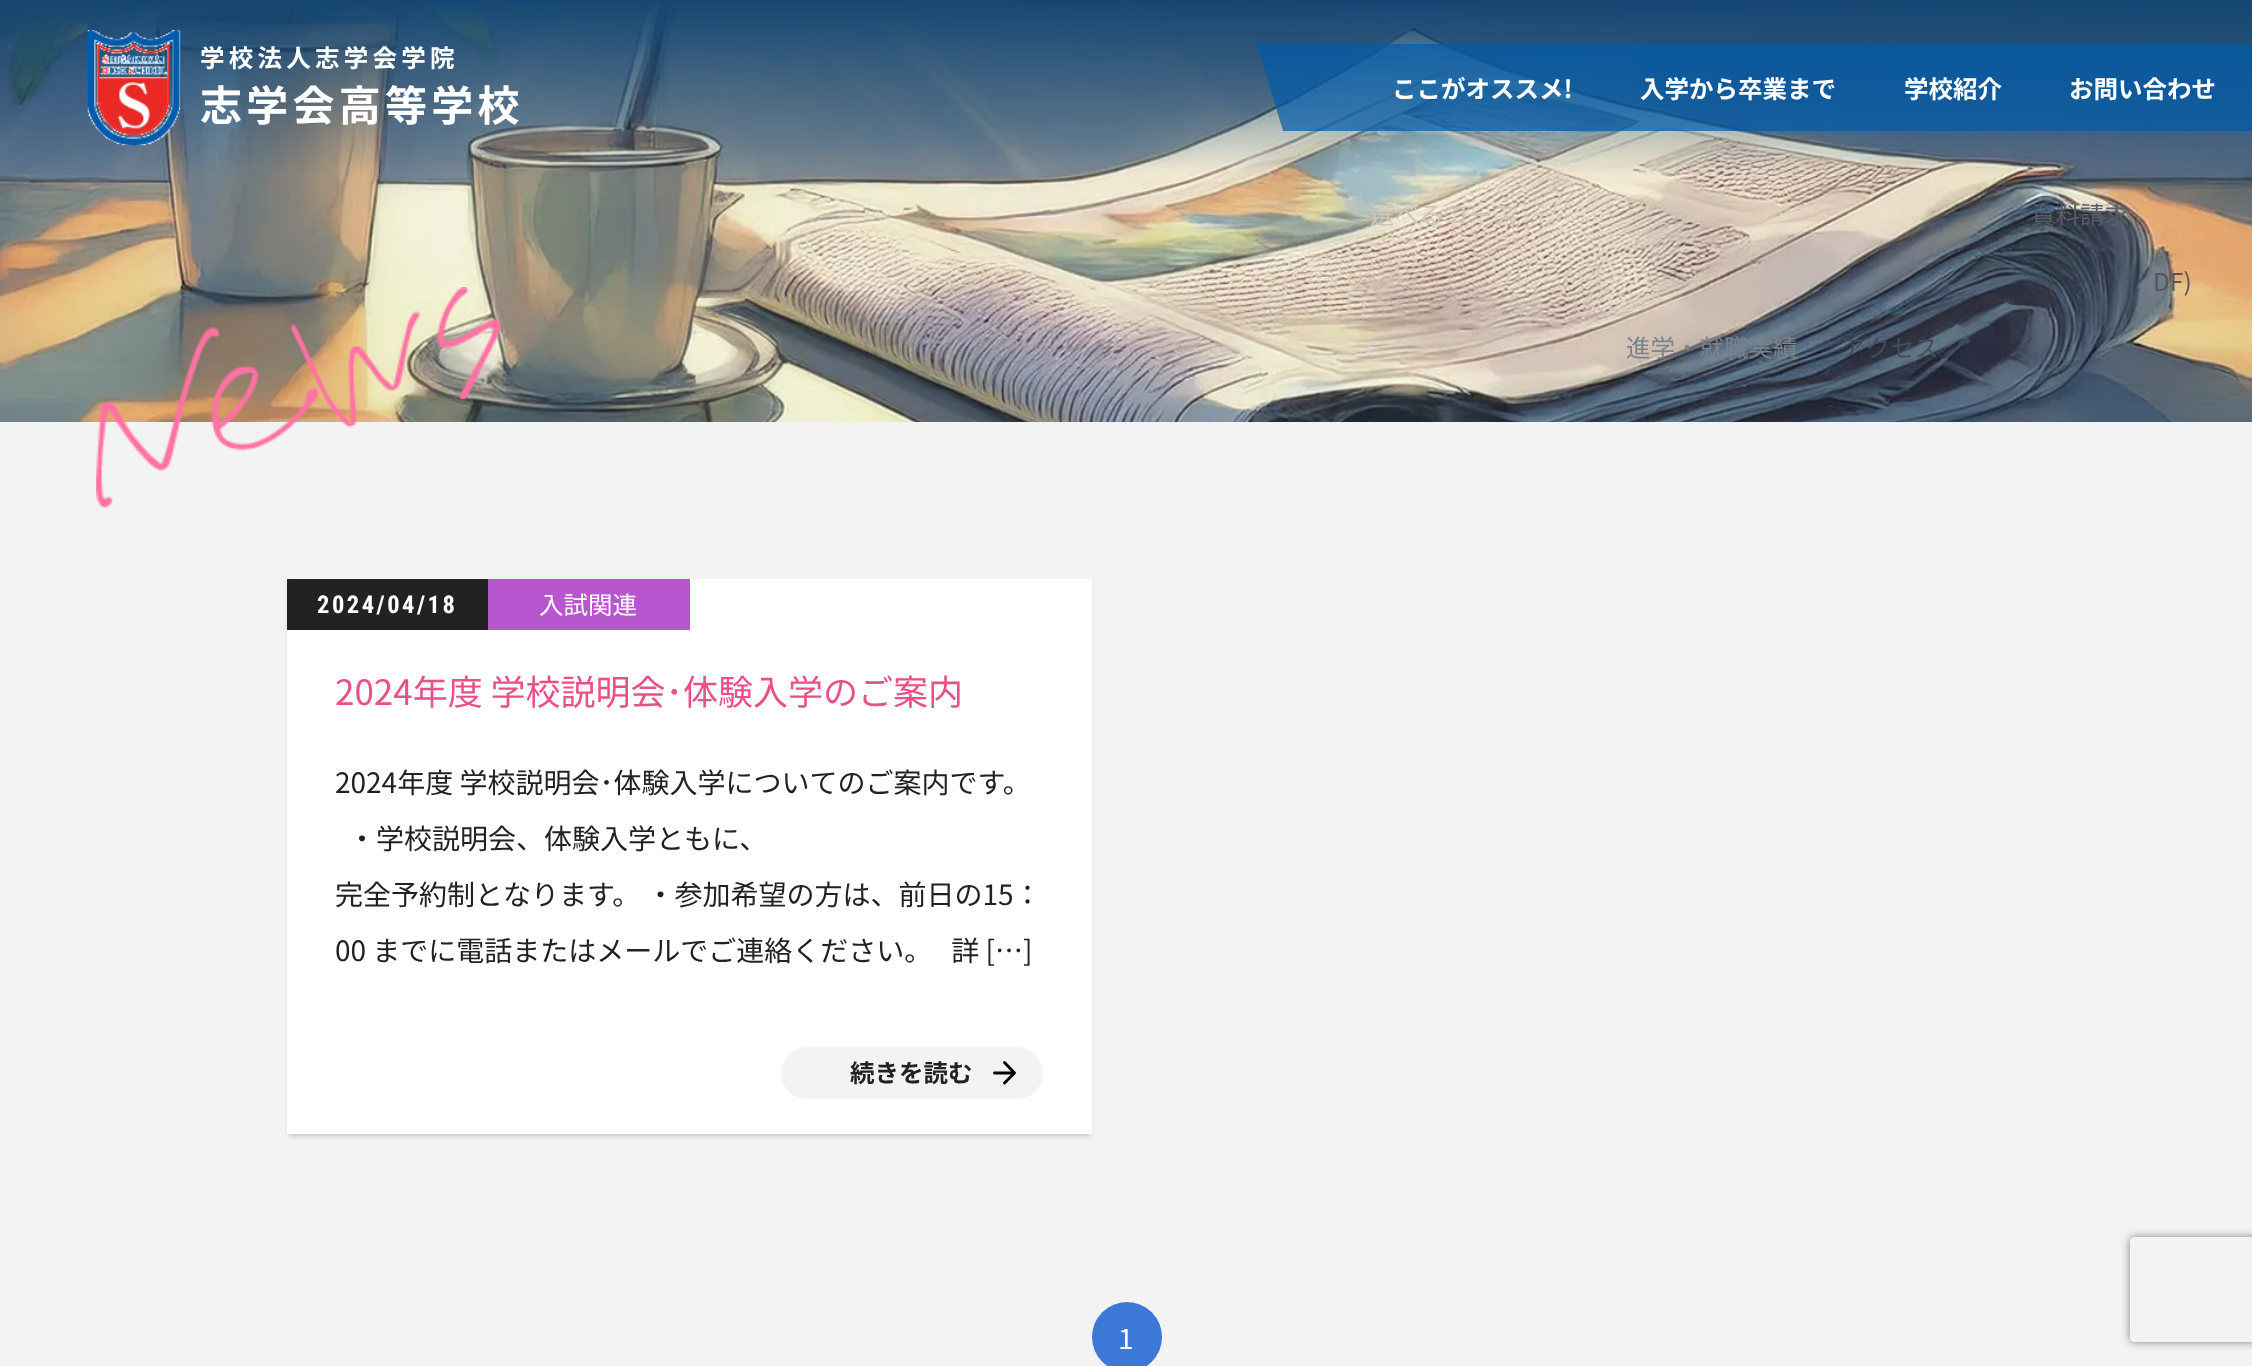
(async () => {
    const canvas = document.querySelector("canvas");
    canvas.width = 2252;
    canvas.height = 1366;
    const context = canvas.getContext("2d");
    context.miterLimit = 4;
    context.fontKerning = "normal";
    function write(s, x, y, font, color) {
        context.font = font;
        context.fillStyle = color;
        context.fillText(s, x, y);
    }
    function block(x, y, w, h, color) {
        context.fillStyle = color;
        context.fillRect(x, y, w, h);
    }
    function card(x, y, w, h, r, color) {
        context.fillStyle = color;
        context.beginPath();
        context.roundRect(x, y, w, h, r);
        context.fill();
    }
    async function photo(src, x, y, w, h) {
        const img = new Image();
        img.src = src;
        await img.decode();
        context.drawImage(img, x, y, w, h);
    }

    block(0, 0, 2252, 1366, "rgb(243, 243, 243)");
    await photo("media/1.png", 0, 0, 2252, 422);
    await photo("media/2.png", 96, 287, 405, 221);
    await photo("media/3.png", 87, 29, 94, 117);
    context.letterSpacing = "4.25px";
    write("学校法人志学会学院", 200, 67, "bold 24.5px Noto Sans JP", "rgb(255, 255, 255)");
    write("志学会高等学校", 200, 121, "bold 42px Noto Sans JP", "rgb(255, 255, 255)");
    context.fillStyle = "rgba(0, 91, 171, 0.7)";
    context.beginPath();
    context.moveTo(1283, 131);
    context.lineTo(1257, 44);
    context.lineTo(2252, 44);
    context.lineTo(2252, 131);
    context.closePath();
    context.fill();
    context.letterSpacing = "0px";
    write("ここがオススメ!", 1392, 98, "bold 24.5px Noto Sans JP", "rgb(255, 255, 255)");
    write("選べるコース", 1370, 224, "24.5px Noto Sans JP", "rgb(207, 199, 182)");
    write("入学から卒業まで", 1640, 98, "bold 24.5px Noto Sans JP", "rgb(255, 255, 255)");
    write("進学・就職実績", 1626, 357, "24.5px Noto Sans JP", "rgb(123, 130, 138)");
    write("学校紹介", 1904, 98, "bold 24.5px Noto Sans JP", "rgb(255, 255, 255)");
    write("アクセス", 1841, 357, "24.5px Noto Sans JP", "rgb(66, 78, 94)");
    write("お問い合わせ", 2069, 98, "bold 24.5px Noto Sans JP", "rgb(255, 255, 255)");
    write("資料請求", 2031, 224, "24.5px Noto Sans JP", "rgb(89, 94, 102)");
    write("DF)", 2153, 291, "24.5px Noto Sans JP", "rgb(81, 87, 97)");
    context.fillStyle = "rgba(0, 0, 0, 0.2)";
    context.filter = "blur(2.5px)";
    context.beginPath();
    context.rect(289, 583, 801, 553);
    context.fill();
    context.filter = "none";
    block(287, 579, 805, 555, "rgb(255, 255, 255)");
    block(287, 579, 201, 51, "rgb(34, 34, 34)");
    context.letterSpacing = "2.5px";
    write("2024/04/18", 317, 613, "bold 24.5px Roboto Condensed", "rgb(255, 255, 255)");
    block(488, 579, 202, 51, "rgb(183, 86, 207)");
    context.letterSpacing = "0px";
    write("入試関連", 539, 614, "24.5px Noto Sans JP", "rgb(255, 255, 255)");
    write("2024年度 学校説明会･体験入学のご案内", 335, 705, "35px Noto Sans JP", "rgb(234, 80, 134)");
    write("2024年度 学校説明会･体験入学についてのご案内です。", 335, 793, "28px Noto Sans JP", "rgb(34, 34, 34)");
    write("・学校説明会、体験入学ともに、", 348, 849, "28px Noto Sans JP", "rgb(34, 34, 34)");
    write("完全予約制となります。 ・参加希望の方は、前日の15：", 335, 905, "28px Noto Sans JP", "rgb(34, 34, 34)");
    write("00 までに電話またはメールでご連絡ください。   詳 […]", 335, 961, "28px Noto Sans JP", "rgb(34, 34, 34)");
    card(781, 1047, 262, 52, 26, "rgb(243, 243, 243)");
    write("続きを読む", 850, 1082, "bold 24.5px Noto Sans JP", "rgb(34, 34, 34)");
    context.beginPath();
    context.moveTo(994.5, 1073);
    context.lineTo(1014.5, 1073);
    context.moveTo(1004.5, 1062.5);
    context.lineTo(1014.5, 1073);
    context.lineTo(1004.5, 1083);
    context.strokeStyle = "rgb(0, 0, 0)";
    context.lineWidth = 2.9;
    context.lineCap = "round";
    context.lineJoin = "round";
    context.stroke();
    context.fillStyle = "rgb(59, 120, 215)";
    context.beginPath();
    context.arc(1127, 1337, 35, 0, Math.PI * 2);
    context.fill();
    write("1", 1118, 1349, "28px Noto Sans JP", "rgb(255, 255, 255)");
    context.save();
    context.beginPath();
    context.moveTo(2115, 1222);
    context.lineTo(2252, 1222);
    context.lineTo(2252, 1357);
    context.lineTo(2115, 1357);
    context.closePath();
    context.moveTo(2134, 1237);
    context.lineTo(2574, 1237);
    context.bezierCurveTo(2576, 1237, 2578, 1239, 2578, 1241);
    context.lineTo(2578, 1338);
    context.bezierCurveTo(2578, 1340, 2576, 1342, 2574, 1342);
    context.lineTo(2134, 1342);
    context.bezierCurveTo(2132, 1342, 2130, 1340, 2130, 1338);
    context.lineTo(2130, 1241);
    context.bezierCurveTo(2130, 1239, 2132, 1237, 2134, 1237);
    context.closePath();
    context.clip("evenodd");
    context.fillStyle = "rgb(128, 128, 128)";
    context.filter = "blur(4.5px)";
    context.beginPath();
    context.roundRect(2130, 1237, 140, 105, 4);
    context.fill();
    context.filter = "none";
    context.restore();
})();
